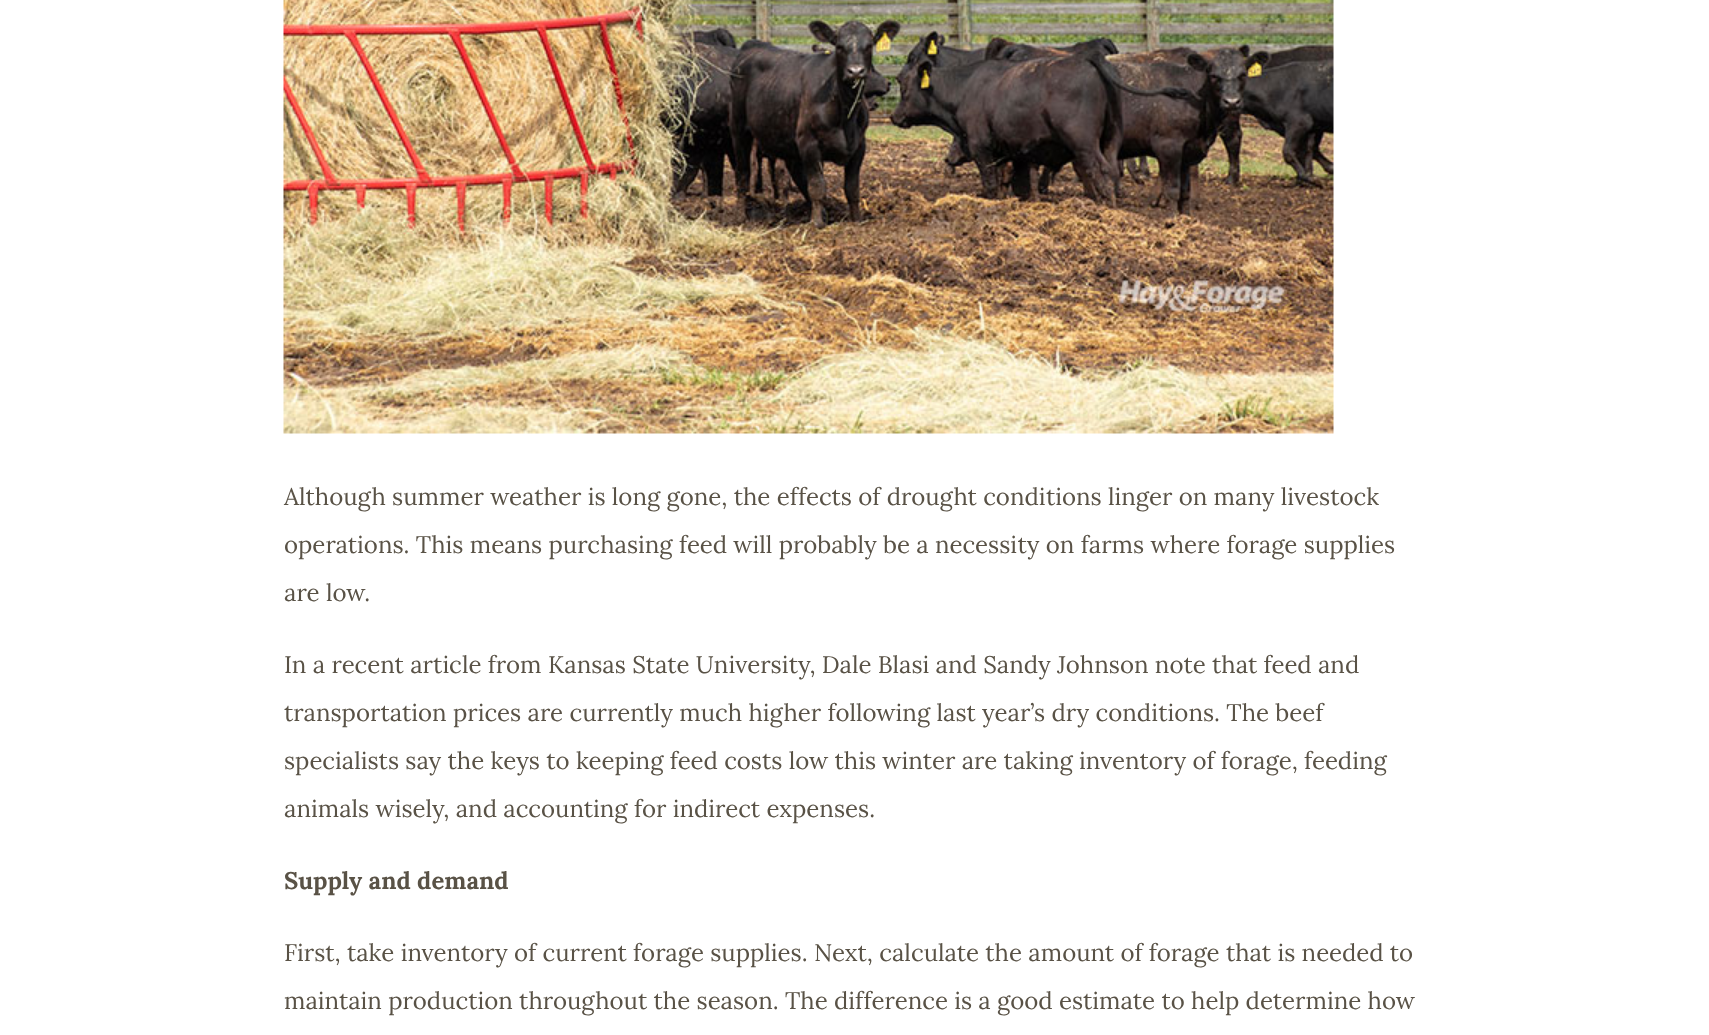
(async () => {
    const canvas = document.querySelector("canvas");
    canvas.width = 1709;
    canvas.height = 1035;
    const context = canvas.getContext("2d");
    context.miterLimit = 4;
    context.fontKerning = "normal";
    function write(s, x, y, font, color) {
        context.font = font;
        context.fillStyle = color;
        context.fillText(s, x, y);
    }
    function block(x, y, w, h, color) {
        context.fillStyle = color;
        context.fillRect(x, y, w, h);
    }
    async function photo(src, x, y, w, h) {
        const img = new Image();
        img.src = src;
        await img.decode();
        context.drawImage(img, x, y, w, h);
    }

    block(0, 0, 1709, 1035, "rgb(255, 255, 255)");
    await photo("media/1.png", 283, 0, 1051, 434);
    write("Although summer weather is long gone, the effects of drought conditions linger on many livestock", 284, 505, "24px Lora", "rgb(89, 82, 70)");
    write("operations. This means purchasing feed will probably be a necessity on farms where forage supplies", 284, 553, "24px Lora", "rgb(89, 82, 70)");
    write("are low.", 284, 601, "24px Lora", "rgb(89, 82, 70)");
    write("In a recent article from Kansas State University, Dale Blasi and Sandy Johnson note that feed and", 284, 673, "24px Lora", "rgb(89, 82, 70)");
    write("transportation prices are currently much higher following last year’s dry conditions. The beef", 284, 721, "24px Lora", "rgb(89, 82, 70)");
    write("specialists say the keys to keeping feed costs low this winter are taking inventory of forage, feeding", 284, 769, "24px Lora", "rgb(89, 82, 70)");
    write("animals wisely, and accounting for indirect expenses.", 284, 817, "24px Lora", "rgb(89, 82, 70)");
    write("Supply and demand", 284, 889, "bold 24px Lora", "rgb(89, 82, 70)");
    write("First, take inventory of current forage supplies. Next, calculate the amount of forage that is needed to", 284, 961, "24px Lora", "rgb(89, 82, 70)");
    write("maintain production throughout the season. The difference is a good estimate to help determine how", 284, 1009, "24px Lora", "rgb(89, 82, 70)");
})();
